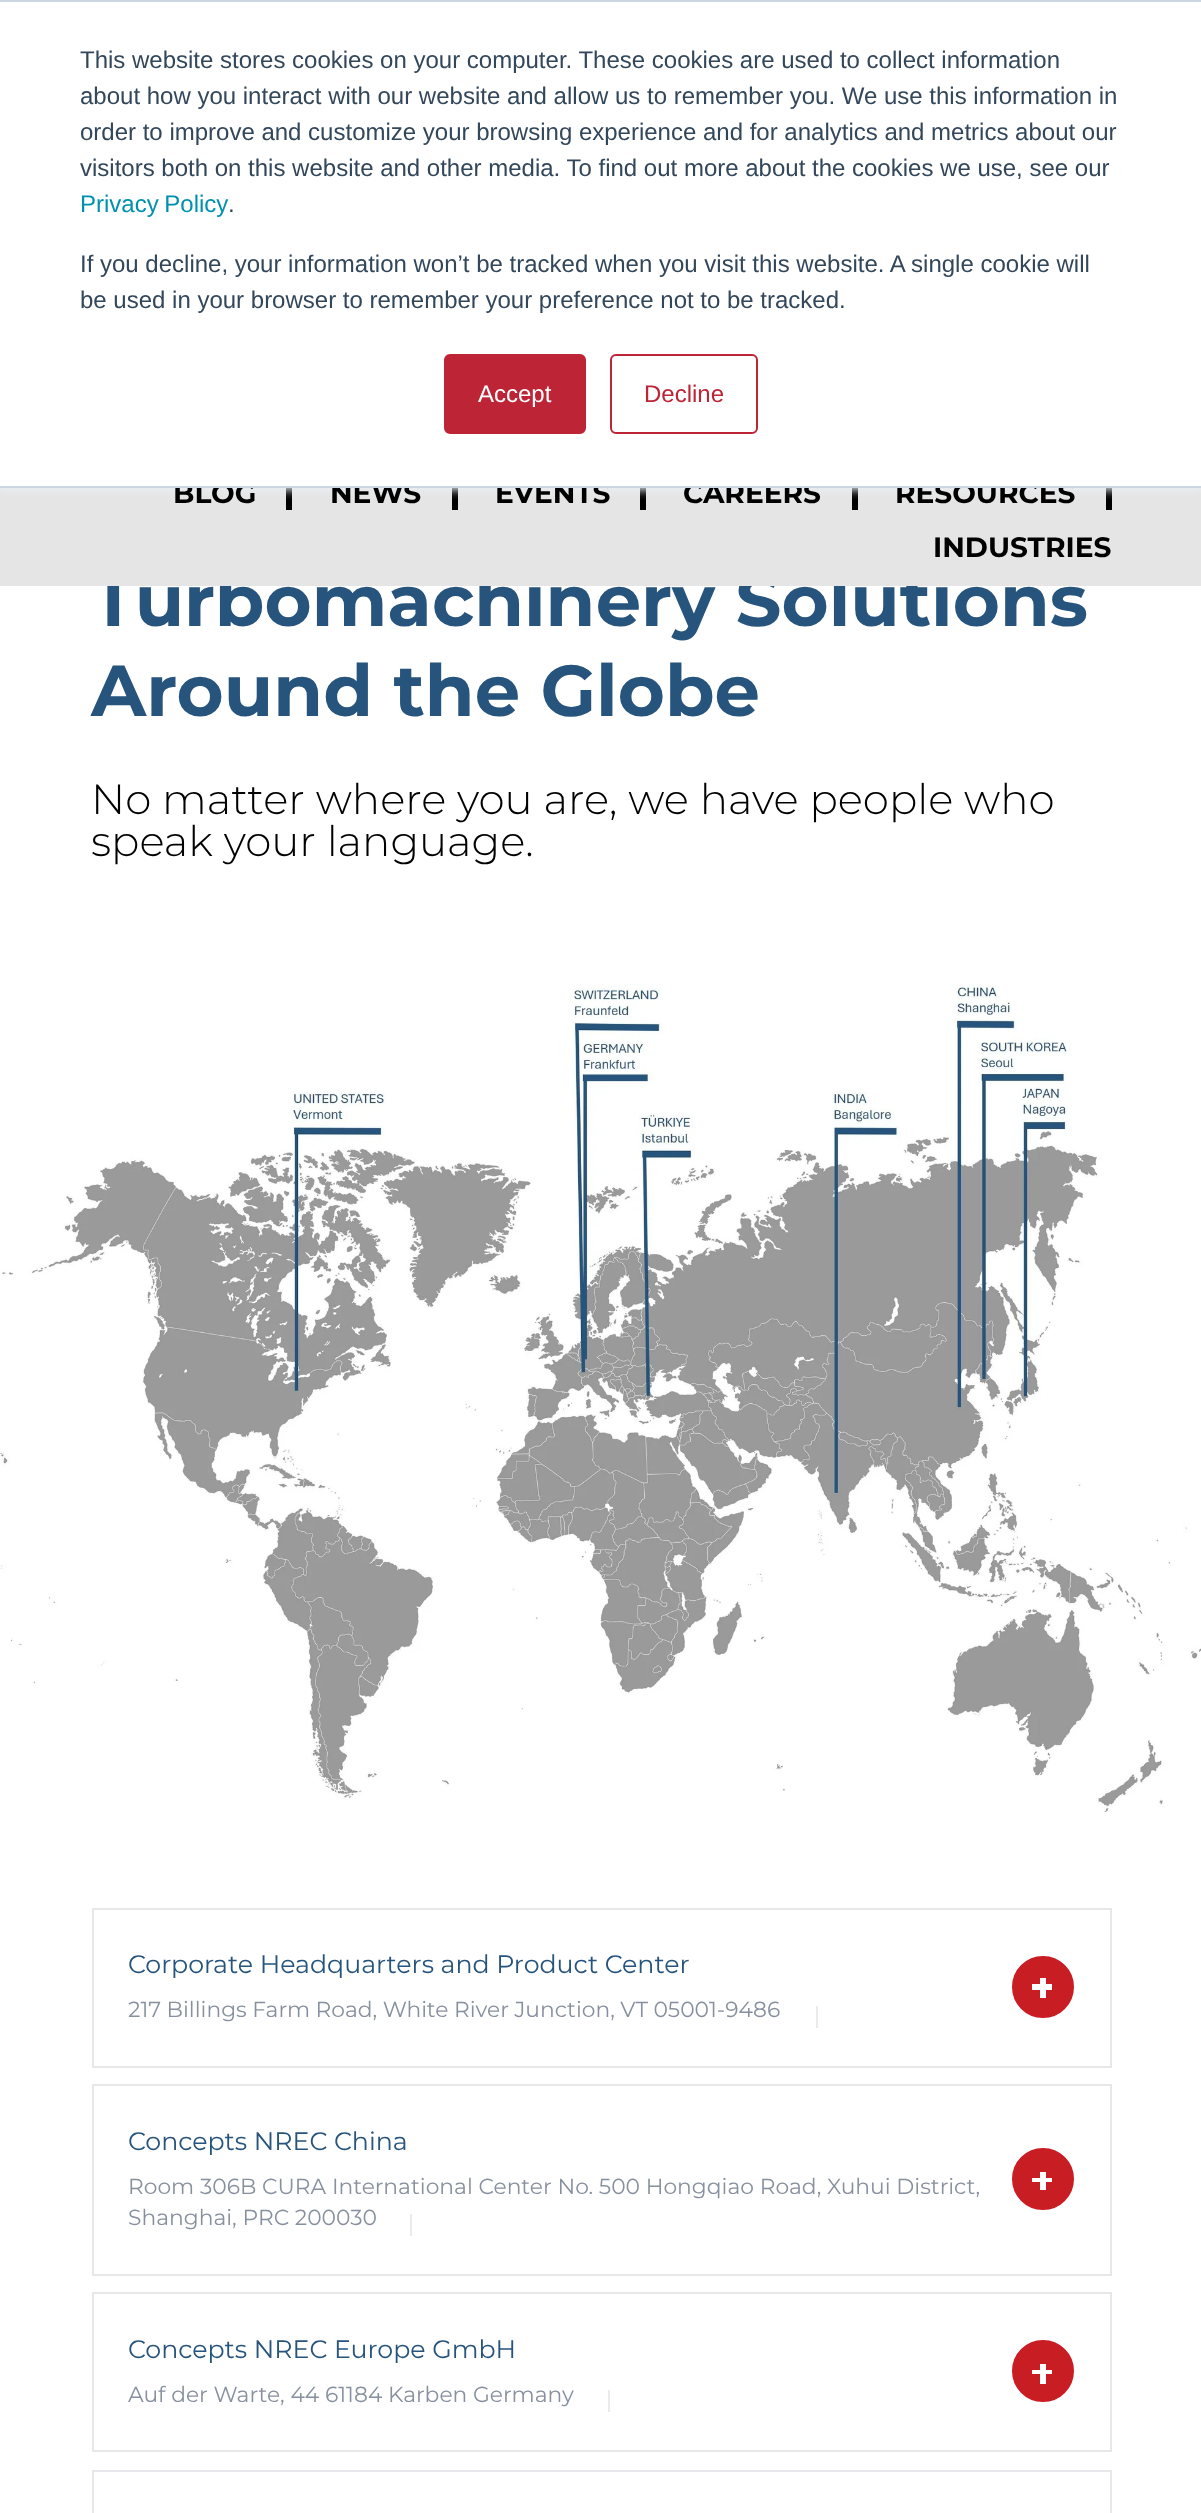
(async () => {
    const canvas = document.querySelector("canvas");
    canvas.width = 1201;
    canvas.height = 2513;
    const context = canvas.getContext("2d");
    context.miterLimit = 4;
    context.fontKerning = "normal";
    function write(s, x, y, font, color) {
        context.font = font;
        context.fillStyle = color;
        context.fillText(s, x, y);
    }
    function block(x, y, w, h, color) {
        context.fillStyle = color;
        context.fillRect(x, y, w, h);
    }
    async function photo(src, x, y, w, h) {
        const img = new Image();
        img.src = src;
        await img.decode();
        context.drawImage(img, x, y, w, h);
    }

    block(0, 0, 1201, 2513, "rgb(255, 255, 255)");
    write("Turbomachinery Solutions", 91, 626, "bold 72px Montserrat", "rgb(38, 84, 124)");
    block(0, 488, 1201, 98, "rgb(229, 229, 229)");
    block(286, 480, 6, 30, "rgb(0, 0, 0)");
    block(452, 480, 6, 30, "rgb(0, 0, 0)");
    block(640, 480, 6, 30, "rgb(0, 0, 0)");
    block(852, 480, 6, 30, "rgb(0, 0, 0)");
    block(1106, 480, 6, 30, "rgb(0, 0, 0)");
    context.fillStyle = "rgb(234, 240, 246)";
    context.filter = "blur(5px)";
    context.beginPath();
    context.rect(0, 2, 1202, 488);
    context.fill();
    context.filter = "none";
    write("BLOG", 173, 503, "bold 28px Montserrat", "rgb(0, 0, 0)");
    write("NEWS", 330, 503, "bold 28px Montserrat", "rgb(0, 0, 0)");
    write("EVENTS", 495, 503, "bold 28px Montserrat", "rgb(0, 0, 0)");
    write("CAREERS", 683, 503, "bold 28px Montserrat", "rgb(0, 0, 0)");
    write("RESOURCES", 895, 503, "bold 28px Montserrat", "rgb(0, 0, 0)");
    block(0, 2, 1201, 484, "rgb(255, 255, 255)");
    block(0, 0, 1201, 2, "rgb(203, 214, 226)");
    block(0, 486, 1201, 2, "rgb(203, 214, 226)");
    write("This website stores cookies on your computer. These cookies are used to collect information", 80, 68, "24px Liberation Sans", "rgb(51, 71, 91)");
    write("about how you interact with our website and allow us to remember you. We use this information in", 80, 104, "24px Liberation Sans", "rgb(51, 71, 91)");
    write("order to improve and customize your browsing experience and for analytics and metrics about our", 80, 140, "24px Liberation Sans", "rgb(51, 71, 91)");
    write("visitors both on this website and other media. To find out more about the cookies we use, see our", 80, 176, "24px Liberation Sans", "rgb(51, 71, 91)");
    context.wordSpacing = "-1px";
    write("Privacy Policy", 80, 212, "24px Liberation Sans", "rgb(0, 145, 174)");
    context.wordSpacing = "0px";
    write(".", 228, 212, "24px Liberation Sans", "rgb(51, 71, 91)");
    write("If you decline, your information won’t be tracked when you visit this website. A single cookie will", 80, 272, "24px Liberation Sans", "rgb(51, 71, 91)");
    write("be used in your browser to remember your preference not to be tracked.", 80, 308, "24px Liberation Sans", "rgb(51, 71, 91)");
    context.fillStyle = "rgb(189, 36, 54)";
    context.beginPath();
    context.roundRect(445, 355, 140, 78, 5);
    context.fill();
    context.strokeStyle = "rgb(189, 36, 54)";
    context.lineWidth = 2;
    context.stroke();
    write("Accept", 478, 402, "24px Liberation Sans", "rgb(255, 255, 255)");
    context.beginPath();
    context.roundRect(611, 355, 146, 78, 5);
    context.stroke();
    write("Decline", 644, 402, "24px Liberation Sans", "rgb(189, 36, 54)");
    write("INDUSTRIES", 933, 557, "bold 28px Montserrat", "rgb(0, 0, 0)");
    write("Around the Globe", 91, 716, "bold 72px Montserrat", "rgb(38, 84, 124)");
    write("No matter where you are, we have people who", 91, 814, "300 42px Montserrat", "rgb(0, 0, 0)");
    write("speak your language.", 91, 856, "300 42px Montserrat", "rgb(0, 0, 0)");
    await photo("media/1.png", 0, 984, 1201, 828);
    context.strokeStyle = "rgb(229, 231, 234)";
    context.strokeRect(93, 1909, 1018, 158);
    write("Corporate Headquarters and Product Center", 128, 1973, "25.25px Montserrat", "rgb(38, 84, 124)");
    context.fillStyle = "rgb(200, 30, 35)";
    context.beginPath();
    context.arc(1043, 1987, 29, 0, Math.PI * 2);
    context.fill();
    context.strokeStyle = "rgb(200, 30, 35)";
    context.lineWidth = 4;
    context.stroke();
    block(1032, 1984, 20, 6, "rgb(255, 255, 255)");
    block(1040, 1978, 6, 20, "rgb(255, 255, 255)");
    context.wordSpacing = "-0.25px";
    write("217 Billings Farm Road, White River Junction, VT 05001-9486", 128, 2017, "21.8px Montserrat", "rgb(135, 144, 158)");
    block(816, 2006, 2, 22, "rgb(235, 235, 235)");
    context.strokeStyle = "rgb(229, 231, 234)";
    context.lineWidth = 2;
    context.strokeRect(93, 2085, 1018, 190);
    context.wordSpacing = "0px";
    write("Concepts NREC China", 128, 2150, "25.25px Montserrat", "rgb(38, 84, 124)");
    write("Room 306B CURA International Center No. 500 Hongqiao Road, Xuhui District,", 128, 2194, "21.8px Montserrat", "rgb(135, 144, 158)");
    write("Shanghai, PRC 200030", 128, 2225, "21.8px Montserrat", "rgb(135, 144, 158)");
    block(410, 2214, 2, 22, "rgb(235, 235, 235)");
    context.fillStyle = "rgb(200, 30, 35)";
    context.beginPath();
    context.arc(1043, 2179, 29, 0, Math.PI * 2);
    context.fill();
    context.strokeStyle = "rgb(200, 30, 35)";
    context.lineWidth = 4;
    context.stroke();
    block(1032, 2178, 20, 4, "rgb(255, 255, 255)");
    block(1040, 2172, 6, 18, "rgb(255, 255, 255)");
    context.strokeStyle = "rgb(229, 231, 234)";
    context.lineWidth = 2;
    context.strokeRect(93, 2293, 1018, 158);
    write("Concepts NREC Europe GmbH", 128, 2358, "25.25px Montserrat", "rgb(38, 84, 124)");
    context.fillStyle = "rgb(200, 30, 35)";
    context.beginPath();
    context.arc(1043, 2371, 29, 0, Math.PI * 2);
    context.fill();
    context.strokeStyle = "rgb(200, 30, 35)";
    context.lineWidth = 4;
    context.stroke();
    block(1032, 2370, 20, 4, "rgb(255, 255, 255)");
    block(1040, 2364, 6, 20, "rgb(255, 255, 255)");
    write("Auf der Warte, 44 61184 Karben Germany", 128, 2402, "21.8px Montserrat", "rgb(135, 144, 158)");
    block(608, 2390, 2, 22, "rgb(235, 235, 235)");
    context.strokeStyle = "rgb(229, 231, 234)";
    context.lineWidth = 2;
    context.strokeRect(93, 2471, 1018, 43);
})();
